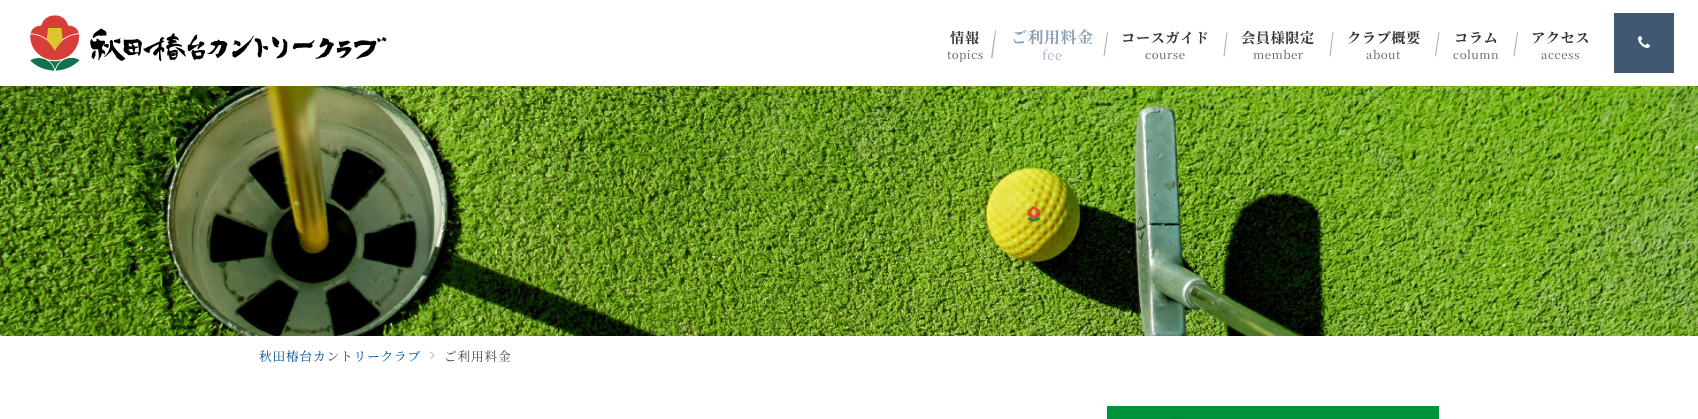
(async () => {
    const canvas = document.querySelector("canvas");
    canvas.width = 1698;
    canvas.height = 419;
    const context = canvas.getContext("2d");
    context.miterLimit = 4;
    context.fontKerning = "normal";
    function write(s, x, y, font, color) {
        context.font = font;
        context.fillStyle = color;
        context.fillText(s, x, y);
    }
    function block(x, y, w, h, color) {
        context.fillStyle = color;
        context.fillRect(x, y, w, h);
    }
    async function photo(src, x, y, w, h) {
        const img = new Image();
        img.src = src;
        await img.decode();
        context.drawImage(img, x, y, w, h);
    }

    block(0, 0, 1698, 419, "rgb(255, 255, 255)");
    await photo("media/1.png", 30, 15, 357, 56);
    context.letterSpacing = "0.5px";
    write("情報", 950, 43, "bold 14.25px Noto Serif JP", "rgb(51, 51, 51)");
    write("topics", 947, 59, "11.5px Noto Serif JP", "rgb(92, 92, 92)");
    context.fillStyle = "rgb(173, 173, 173)";
    context.beginPath();
    context.moveTo(995, 30.5);
    context.lineTo(996, 30.5);
    context.lineTo(992.5, 58);
    context.lineTo(991, 58);
    context.closePath();
    context.fill();
    write("ご利用料金", 1011, 43, "bold 16px Noto Serif JP", "rgb(139, 160, 182)");
    write("fee", 1042, 60, "13px Noto Serif JP", "rgb(162, 179, 197)");
    context.fillStyle = "rgb(173, 173, 173)";
    context.beginPath();
    context.moveTo(1107, 32);
    context.lineTo(1108, 32);
    context.lineTo(1104.5, 56.5);
    context.lineTo(1103.5, 56);
    context.closePath();
    context.fill();
    write("コースガイド", 1121, 43, "bold 14.25px Noto Serif JP", "rgb(51, 51, 51)");
    write("course", 1145, 59, "11.5px Noto Serif JP", "rgb(92, 92, 92)");
    context.fillStyle = "rgb(173, 173, 173)";
    context.beginPath();
    context.moveTo(1226.5, 32);
    context.lineTo(1227.5, 32);
    context.lineTo(1224.5, 56.5);
    context.lineTo(1223.5, 56);
    context.closePath();
    context.fill();
    write("会員様限定", 1241, 43, "bold 14.25px Noto Serif JP", "rgb(51, 51, 51)");
    write("member", 1253, 59, "11.5px Noto Serif JP", "rgb(92, 92, 92)");
    context.fillStyle = "rgb(173, 173, 173)";
    context.beginPath();
    context.moveTo(1332.5, 32);
    context.lineTo(1333.5, 32);
    context.lineTo(1330.5, 56.5);
    context.lineTo(1329.5, 56);
    context.closePath();
    context.fill();
    write("クラブ概要", 1347, 43, "bold 14.25px Noto Serif JP", "rgb(51, 51, 51)");
    write("about", 1366, 59, "11.5px Noto Serif JP", "rgb(92, 92, 92)");
    context.fillStyle = "rgb(173, 173, 173)";
    context.beginPath();
    context.moveTo(1438.5, 32);
    context.lineTo(1439.5, 32);
    context.lineTo(1436, 56.5);
    context.lineTo(1435, 56);
    context.closePath();
    context.fill();
    write("コラム", 1454, 43, "bold 14.25px Noto Serif JP", "rgb(51, 51, 51)");
    write("column", 1453, 59, "11.5px Noto Serif JP", "rgb(92, 92, 92)");
    context.fillStyle = "rgb(173, 173, 173)";
    context.beginPath();
    context.moveTo(1517, 32);
    context.lineTo(1518, 32);
    context.lineTo(1514.5, 56.5);
    context.lineTo(1513.5, 56);
    context.closePath();
    context.fill();
    write("アクセス", 1531, 43, "bold 14.25px Noto Serif JP", "rgb(51, 51, 51)");
    write("access", 1541, 59, "11.5px Noto Serif JP", "rgb(92, 92, 92)");
    block(1614, 13, 60, 60, "rgb(63, 89, 115)");
    await photo("media/2.png", 1638, 36, 12, 12);
    await photo("media/3.png", 0, 86, 1698, 250);
    context.letterSpacing = "0.75px";
    write("秋田椿台カントリークラブ", 259, 361, "12.75px Noto Serif JP", "rgb(0, 78, 142)");
    await photo("media/4.png", 430, 351, 5, 8);
    write("ご利用料金", 444, 361, "12.75px Noto Serif JP", "rgb(72, 72, 72)");
    await photo("media/5.png", 1107, 406, 332, 13);
})();
